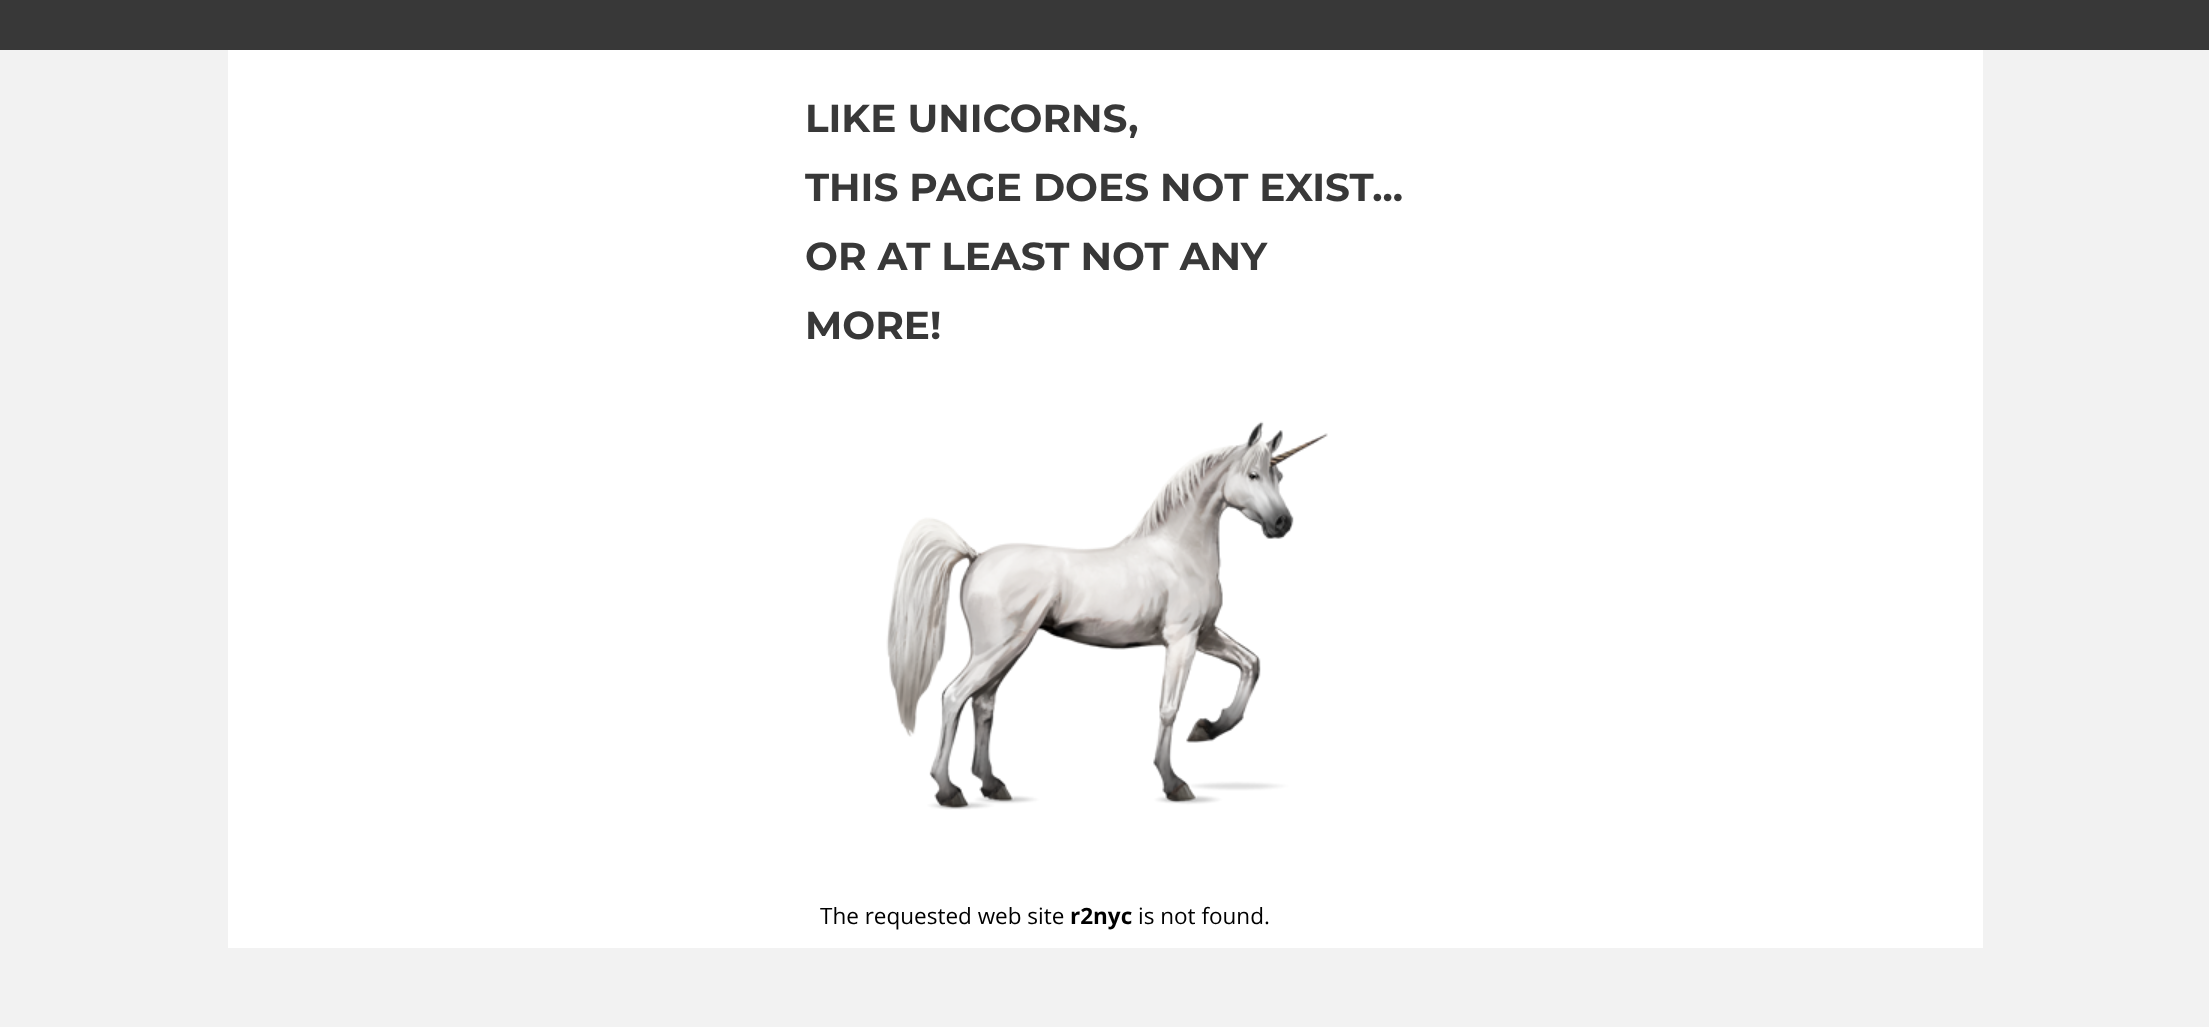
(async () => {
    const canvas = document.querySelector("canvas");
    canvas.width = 2209;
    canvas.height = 1027;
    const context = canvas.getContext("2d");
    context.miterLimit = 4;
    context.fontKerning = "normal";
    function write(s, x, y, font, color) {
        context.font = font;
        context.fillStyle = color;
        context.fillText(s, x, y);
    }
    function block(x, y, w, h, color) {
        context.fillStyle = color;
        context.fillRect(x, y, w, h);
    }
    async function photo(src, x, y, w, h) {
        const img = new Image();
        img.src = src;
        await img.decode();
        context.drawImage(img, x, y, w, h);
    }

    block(0, 0, 2209, 1027, "rgb(242, 242, 242)");
    block(0, 0, 2209, 50, "rgb(56, 56, 56)");
    block(228, 50, 1755, 898, "rgb(255, 255, 255)");
    write("LIKE UNICORNS,", 805, 132, "bold 39px Montserrat", "rgb(56, 56, 56)");
    write("THIS PAGE DOES NOT EXIST...", 805, 201, "bold 39px Montserrat", "rgb(56, 56, 56)");
    write("OR AT LEAST NOT ANY", 805, 270, "bold 39px Montserrat", "rgb(56, 56, 56)");
    write("MORE!", 805, 339, "bold 39px Montserrat", "rgb(56, 56, 56)");
    await photo("media/1.png", 886, 421, 442, 389);
    write("The requested web site", 820, 924, "22.5px Open Sans", "rgb(0, 0, 0)");
    write("r2nyc", 1070, 924, "bold 22.5px Open Sans", "rgb(0, 0, 0)");
    write("is not found.", 1138, 924, "22.5px Open Sans", "rgb(0, 0, 0)");
})();
